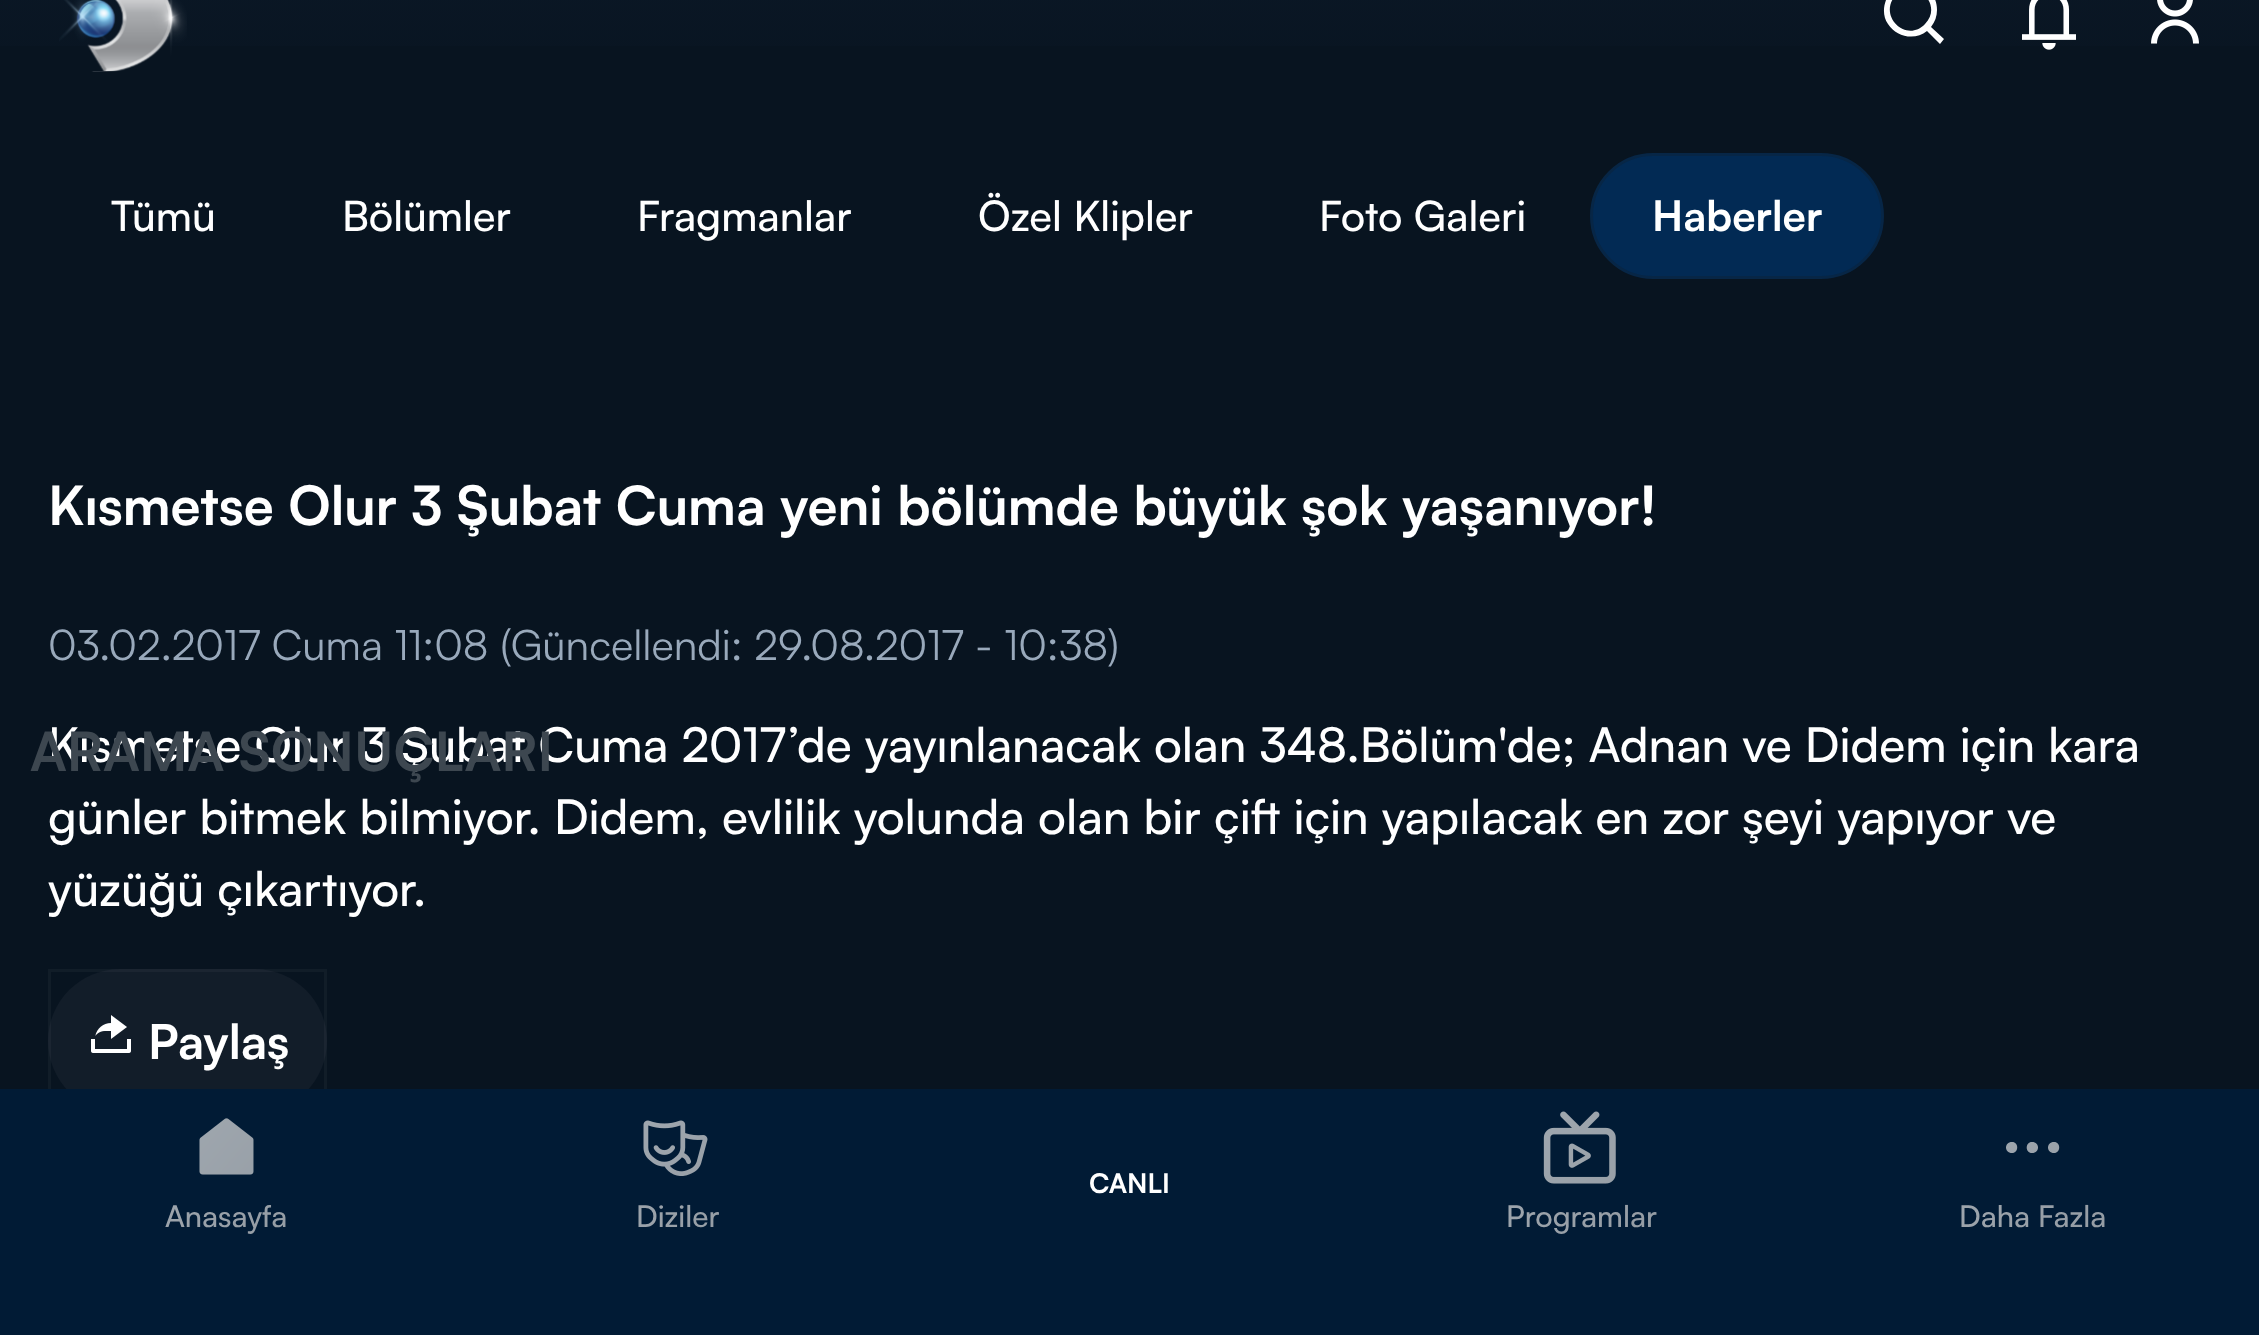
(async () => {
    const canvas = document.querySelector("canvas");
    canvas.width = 2259;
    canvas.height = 1335;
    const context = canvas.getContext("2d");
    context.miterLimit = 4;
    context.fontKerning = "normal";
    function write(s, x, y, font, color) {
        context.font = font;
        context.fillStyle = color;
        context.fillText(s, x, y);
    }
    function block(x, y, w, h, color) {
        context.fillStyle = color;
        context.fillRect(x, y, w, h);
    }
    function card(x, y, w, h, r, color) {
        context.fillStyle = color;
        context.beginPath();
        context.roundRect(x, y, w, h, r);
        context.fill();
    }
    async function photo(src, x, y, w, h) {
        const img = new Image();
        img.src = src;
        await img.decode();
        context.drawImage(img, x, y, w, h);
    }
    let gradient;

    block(0, 0, 2259, 1335, "rgb(8, 20, 32)");
    write("Tümü", 111, 231, "500 42px Satoshi", "rgb(255, 255, 255)");
    write("Bölümler", 342, 231, "500 42px Satoshi", "rgb(255, 255, 255)");
    write("Fragmanlar", 637, 231, "500 42px Satoshi", "rgb(255, 255, 255)");
    write("Özel Klipler", 978, 231, "500 42px Satoshi", "rgb(255, 255, 255)");
    write("Foto Galeri", 1319, 231, "500 42px Satoshi", "rgb(255, 255, 255)");
    context.fillStyle = "rgb(2, 42, 84)";
    context.beginPath();
    context.roundRect(1591.5, 154.5, 291, 123, 61.5);
    context.fill();
    context.strokeStyle = "rgb(7, 38, 70)";
    context.lineWidth = 3;
    context.stroke();
    write("Haberler", 1652, 231, "bold 42px Satoshi", "rgb(255, 255, 255)");
    write("Kısmetse Olur 3 Şubat Cuma yeni bölümde büyük şok yaşanıyor!", 48, 525, "bold 54px Satoshi", "rgb(255, 255, 255)");
    write("03.02.2017 Cuma 11:08 (Güncellendi: 29.08.2017 - 10:38)", 48, 660, "42px Satoshi", "rgb(153, 169, 187)");
    write("Kısmetse Olur 3 Şubat Cuma 2017’de yayınlanacak olan 348.Bölüm'de; Adnan ve Didem için kara", 48, 762, "500 48px Satoshi", "rgb(255, 255, 255)");
    write("günler bitmek bilmiyor. Didem, evlilik yolunda olan bir çift için yapılacak en zor şeyi yapıyor ve", 48, 834, "500 48px Satoshi", "rgb(255, 255, 255)");
    write("yüzüğü çıkartıyor.", 48, 906, "500 48px Satoshi", "rgb(255, 255, 255)");
    card(48, 969, 279, 144, 72, "rgb(18, 29, 41)");
    context.strokeStyle = "rgba(255, 255, 255, 0.04)";
    context.strokeRect(49.5, 970.5, 276, 141);
    await photo("media/1.png", 91, 1015, 40, 38);
    write("Paylaş", 148, 1059, "bold 48px Satoshi", "rgb(255, 255, 255)");
    gradient = context.createLinearGradient(1130, 112, 1130, -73);
    gradient.addColorStop(0, "rgb(8, 20, 32)");
    gradient.addColorStop(1, "rgb(11, 24, 39)");
    context.fillStyle = gradient;
    context.fillRect(0, 0, 2259, 46);
    write("ARAMA SONUÇLARI", 30, 771, "bold 54px Satoshi", "rgb(61, 71, 80)");
    await photo("media/2.png", 59, 0, 128, 72);
    context.fillStyle = "rgb(255, 255, 255)";
    context.beginPath();
    context.moveTo(1931, 27);
    context.lineTo(1944, 39);
    context.lineTo(1940, 44);
    context.lineTo(1927, 31);
    context.bezierCurveTo(1915, 41, 1896, 37, 1888, 24);
    context.bezierCurveTo(1883, 17, 1883, 8, 1886, 0);
    context.bezierCurveTo(1898, -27, 1937, -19, 1937, 10);
    context.bezierCurveTo(1937, 16, 1935, 22, 1931, 27);
    context.closePath();
    context.moveTo(1925, 24);
    context.bezierCurveTo(1944, 5, 1915, -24, 1896, -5);
    context.bezierCurveTo(1877, 15, 1906, 44, 1925, 24);
    context.closePath();
    context.fill();
    await photo("media/3.png", 2022, 0, 54, 50);
    await photo("media/4.png", 2151, 0, 48, 44);
    block(0, 1089, 2259, 246, "rgb(1, 27, 53)");
    write("CANLI", 1089, 1193, "bold 27px Satoshi", "rgb(255, 255, 255)");
    await photo("media/5.png", 199, 1118, 55, 57);
    context.font = "500 30px Satoshi";
    gradient = context.createLinearGradient(-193, 821, 902, 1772);
    gradient.addColorStop(0, "rgb(194, 201, 208)");
    gradient.addColorStop(1, "rgb(89, 98, 107)");
    context.fillStyle = gradient;
    context.fillText("Anasayfa", 165, 1227);
    await photo("media/6.png", 643, 1120, 65, 56);
    gradient = context.createLinearGradient(259, 821, 1354, 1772);
    gradient.addColorStop(0, "rgb(194, 201, 208)");
    gradient.addColorStop(1, "rgb(89, 98, 107)");
    context.fillStyle = gradient;
    context.fillText("Diziler", 636, 1227);
    await photo("media/7.png", 1543, 1111, 73, 73);
    gradient = context.createLinearGradient(1162, 821, 2257, 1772);
    gradient.addColorStop(0, "rgb(194, 201, 208)");
    gradient.addColorStop(1, "rgb(89, 98, 107)");
    context.fillStyle = gradient;
    context.fillText("Programlar", 1506, 1227);
    gradient = context.createLinearGradient(1614, 821, 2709, 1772);
    gradient.addColorStop(0, "rgb(194, 201, 208)");
    gradient.addColorStop(1, "rgb(89, 98, 107)");
    context.fillStyle = gradient;
    context.beginPath();
    context.moveTo(2012, 1142);
    context.bezierCurveTo(2004, 1142, 2004, 1153, 2012, 1153);
    context.bezierCurveTo(2019, 1153, 2019, 1142, 2012, 1142);
    context.closePath();
    context.moveTo(2054, 1142);
    context.bezierCurveTo(2046, 1142, 2046, 1153, 2054, 1153);
    context.bezierCurveTo(2061, 1153, 2061, 1142, 2054, 1142);
    context.closePath();
    context.moveTo(2032, 1142);
    context.bezierCurveTo(2025, 1142, 2025, 1153, 2032, 1153);
    context.bezierCurveTo(2040, 1153, 2040, 1142, 2032, 1142);
    context.closePath();
    context.fill();
    context.fillText("Daha Fazla", 1959, 1227);
})();
